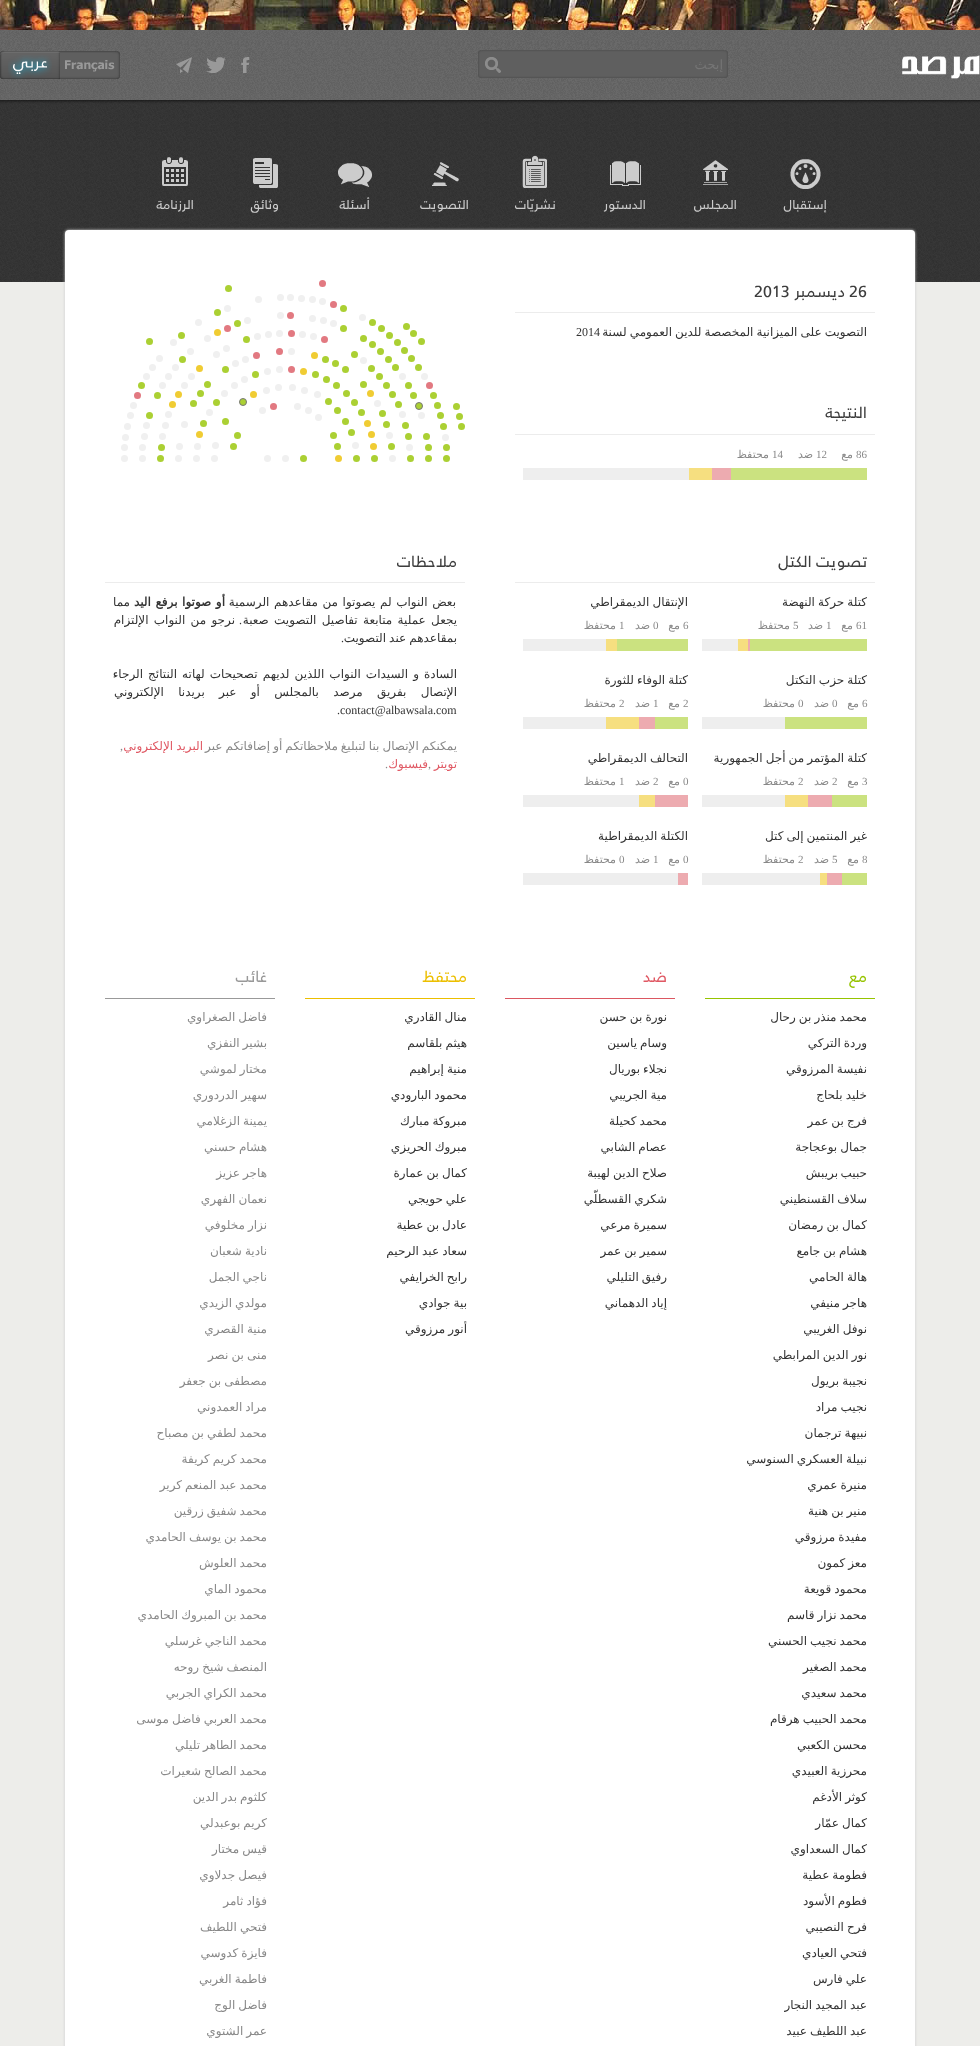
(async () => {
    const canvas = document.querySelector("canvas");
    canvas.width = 980;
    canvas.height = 2046;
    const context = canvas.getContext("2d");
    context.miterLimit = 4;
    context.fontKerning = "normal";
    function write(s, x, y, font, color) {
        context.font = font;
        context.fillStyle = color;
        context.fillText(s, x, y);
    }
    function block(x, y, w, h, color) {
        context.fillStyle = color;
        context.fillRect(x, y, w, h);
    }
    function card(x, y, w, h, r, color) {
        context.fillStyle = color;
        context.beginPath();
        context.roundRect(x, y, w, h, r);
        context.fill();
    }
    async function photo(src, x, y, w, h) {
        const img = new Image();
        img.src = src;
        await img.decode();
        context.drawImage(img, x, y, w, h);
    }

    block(0, 0, 980, 2046, "rgb(237, 237, 234)");
    await photo("media/1.png", 0, 0, 980, 30);
    await photo("media/2.png", 0, 30, 980, 252);
    await photo("media/3.png", 902, 55, 78, 24);
    await photo("media/4.png", 478, 50, 250, 28);
    context.direction = "rtl";
    write("إبحث", 723, 69, "13px DejaVu Sans", "rgb(117, 117, 117)");
    await photo("media/5.png", 241, 57, 9, 16);
    await photo("media/6.png", 206, 57, 20, 16);
    await photo("media/7.png", 176, 57, 16, 16);
    await photo("media/8.png", 0, 51, 120, 28);
    await photo("media/9.png", 65, 60, 50, 12);
    await photo("media/10.png", 8, 55, 44, 24);
    await photo("media/11.png", 790, 159, 31, 30);
    write("إستقبال", 827, 209, "13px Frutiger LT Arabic", "rgb(204, 204, 204)");
    await photo("media/12.png", 703, 160, 25, 25);
    write("المجلس", 737, 209, "13px Frutiger LT Arabic", "rgb(204, 204, 204)");
    await photo("media/13.png", 610, 161, 31, 25);
    write("الدستور", 646, 209, "13px Frutiger LT Arabic", "rgb(204, 204, 204)");
    await photo("media/14.png", 522, 155, 25, 33);
    write("نشريّات", 556, 209, "13px Frutiger LT Arabic", "rgb(204, 204, 204)");
    await photo("media/15.png", 432, 162, 27, 24);
    write("التصويت", 469, 209, "13px Frutiger LT Arabic", "rgb(204, 204, 204)");
    await photo("media/16.png", 338, 163, 34, 24);
    write("أسئلة", 370, 209, "13px Frutiger LT Arabic", "rgb(204, 204, 204)");
    await photo("media/17.png", 253, 158, 25, 30);
    write("وثائق", 279, 209, "13px Frutiger LT Arabic", "rgb(204, 204, 204)");
    await photo("media/18.png", 162, 157, 26, 29);
    write("الرزنامة", 194, 209, "13px Frutiger LT Arabic", "rgb(204, 204, 204)");
    context.filter = "blur(1.5px)";
    context.beginPath();
    context.roundRect(65, 230, 850, 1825, 4);
    context.fill();
    context.filter = "none";
    card(65, 230, 850, 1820, 4, "rgb(255, 255, 255)");
    block(515, 312, 360, 1, "rgb(236, 236, 236)");
    context.direction = "ltr";
    write("26", 849, 297, "16px Frutiger LT Arabic", "rgb(61, 61, 61)");
    context.direction = "rtl";
    write("ديسمبر", 845, 297, "16px Frutiger LT Arabic", "rgb(61, 61, 61)");
    context.direction = "ltr";
    write("2013", 754, 297, "16px Frutiger LT Arabic", "rgb(61, 61, 61)");
    context.wordSpacing = "-0.75px";
    context.direction = "rtl";
    write("التصويت على الميزانية المخصصة للدين العمومي لسنة", 867, 336, "12px DejaVu Sans", "rgb(51, 51, 51)");
    context.wordSpacing = "0px";
    context.direction = "ltr";
    write("2014", 576, 336, "12px Liberation Serif", "rgb(51, 51, 51)");
    context.fillStyle = "rgb(226, 121, 129)";
    context.beginPath();
    context.arc(322.5, 283.5, 3.5, 0, Math.PI * 2);
    context.fill();
    context.fillStyle = "rgb(171, 208, 51)";
    context.beginPath();
    context.arc(228.5, 288.5, 3.5, 0, Math.PI * 2);
    context.fill();
    context.beginPath();
    context.arc(343.5, 308.5, 3.5, 0, Math.PI * 2);
    context.fill();
    context.fillStyle = "rgb(226, 121, 129)";
    context.beginPath();
    context.arc(333.5, 304.5, 3.5, 0, Math.PI * 2);
    context.fill();
    context.fillStyle = "rgb(240, 240, 240)";
    context.beginPath();
    context.arc(322.5, 301.5, 3.5, 0, Math.PI * 2);
    context.fill();
    context.beginPath();
    context.arc(312.5, 299.5, 3.5, 0, Math.PI * 2);
    context.fill();
    context.beginPath();
    context.arc(301.5, 298.5, 3.5, 0, Math.PI * 2);
    context.fill();
    context.beginPath();
    context.arc(290.5, 297.5, 3.5, 0, Math.PI * 2);
    context.fill();
    context.beginPath();
    context.arc(280.5, 297.5, 3.5, 0, Math.PI * 2);
    context.fill();
    context.beginPath();
    context.arc(258.5, 299.5, 3.5, 0, Math.PI * 2);
    context.fill();
    context.beginPath();
    context.arc(227.5, 308.5, 3.5, 0, Math.PI * 2);
    context.fill();
    context.fillStyle = "rgb(171, 208, 51)";
    context.beginPath();
    context.arc(217.5, 312.5, 3.5, 0, Math.PI * 2);
    context.fill();
    context.beginPath();
    context.arc(406.5, 326.5, 3.5, 0, Math.PI * 2);
    context.fill();
    context.beginPath();
    context.arc(381.5, 328.5, 3.5, 0, Math.PI * 2);
    context.fill();
    context.beginPath();
    context.arc(372.5, 322.5, 3.5, 0, Math.PI * 2);
    context.fill();
    context.fillStyle = "rgb(240, 240, 240)";
    context.beginPath();
    context.arc(362.5, 317.5, 3.5, 0, Math.PI * 2);
    context.fill();
    context.fillStyle = "rgb(171, 208, 51)";
    context.beginPath();
    context.arc(343.5, 328.5, 3.5, 0, Math.PI * 2);
    context.fill();
    context.fillStyle = "rgb(240, 240, 240)";
    context.beginPath();
    context.arc(333.5, 323.5, 3.5, 0, Math.PI * 2);
    context.fill();
    context.beginPath();
    context.arc(323.5, 320.5, 3.5, 0, Math.PI * 2);
    context.fill();
    context.beginPath();
    context.arc(312.5, 318.5, 3.5, 0, Math.PI * 2);
    context.fill();
    context.fillStyle = "rgb(226, 121, 129)";
    context.beginPath();
    context.arc(290.5, 315.5, 3.5, 0, Math.PI * 2);
    context.fill();
    context.fillStyle = "rgb(240, 240, 240)";
    context.beginPath();
    context.arc(280.5, 315.5, 3.5, 0, Math.PI * 2);
    context.fill();
    context.beginPath();
    context.arc(247.5, 320.5, 3.5, 0, Math.PI * 2);
    context.fill();
    context.fillStyle = "rgb(171, 208, 51)";
    context.beginPath();
    context.arc(237.5, 323.5, 3.5, 0, Math.PI * 2);
    context.fill();
    context.fillStyle = "rgb(226, 121, 129)";
    context.beginPath();
    context.arc(227.5, 328.5, 3.5, 0, Math.PI * 2);
    context.fill();
    context.fillStyle = "rgb(240, 204, 51)";
    context.beginPath();
    context.arc(217.5, 332.5, 3.5, 0, Math.PI * 2);
    context.fill();
    context.fillStyle = "rgb(240, 240, 240)";
    context.beginPath();
    context.arc(198.5, 322.5, 3.5, 0, Math.PI * 2);
    context.fill();
    context.fillStyle = "rgb(171, 208, 51)";
    context.beginPath();
    context.arc(421.5, 341.5, 3.5, 0, Math.PI * 2);
    context.fill();
    context.beginPath();
    context.arc(413.5, 333.5, 3.5, 0, Math.PI * 2);
    context.fill();
    context.beginPath();
    context.arc(404.5, 350.5, 3.5, 0, Math.PI * 2);
    context.fill();
    context.beginPath();
    context.arc(397.5, 342.5, 3.5, 0, Math.PI * 2);
    context.fill();
    context.beginPath();
    context.arc(389.5, 335.5, 3.5, 0, Math.PI * 2);
    context.fill();
    context.beginPath();
    context.arc(372.5, 344.5, 3.5, 0, Math.PI * 2);
    context.fill();
    context.beginPath();
    context.arc(363.5, 338.5, 3.5, 0, Math.PI * 2);
    context.fill();
    context.fillStyle = "rgb(226, 121, 129)";
    context.beginPath();
    context.arc(324.5, 339.5, 3.5, 0, Math.PI * 2);
    context.fill();
    context.fillStyle = "rgb(240, 240, 240)";
    context.beginPath();
    context.arc(313.5, 336.5, 3.5, 0, Math.PI * 2);
    context.fill();
    context.beginPath();
    context.arc(302.5, 334.5, 3.5, 0, Math.PI * 2);
    context.fill();
    context.fillStyle = "rgb(226, 121, 129)";
    context.beginPath();
    context.arc(291.5, 333.5, 3.5, 0, Math.PI * 2);
    context.fill();
    context.fillStyle = "rgb(240, 240, 240)";
    context.beginPath();
    context.arc(279.5, 333.5, 3.5, 0, Math.PI * 2);
    context.fill();
    context.beginPath();
    context.arc(268.5, 334.5, 3.5, 0, Math.PI * 2);
    context.fill();
    context.beginPath();
    context.arc(257.5, 336.5, 3.5, 0, Math.PI * 2);
    context.fill();
    context.fillStyle = "rgb(171, 208, 51)";
    context.beginPath();
    context.arc(246.5, 339.5, 3.5, 0, Math.PI * 2);
    context.fill();
    context.fillStyle = "rgb(240, 240, 240)";
    context.beginPath();
    context.arc(226.5, 348.5, 3.5, 0, Math.PI * 2);
    context.fill();
    context.beginPath();
    context.arc(207.5, 338.5, 3.5, 0, Math.PI * 2);
    context.fill();
    context.beginPath();
    context.arc(190.5, 351.5, 3.5, 0, Math.PI * 2);
    context.fill();
    context.fillStyle = "rgb(171, 208, 51)";
    context.beginPath();
    context.arc(181.5, 335.5, 3.5, 0, Math.PI * 2);
    context.fill();
    context.fillStyle = "rgb(240, 240, 240)";
    context.beginPath();
    context.arc(173.5, 342.5, 3.5, 0, Math.PI * 2);
    context.fill();
    context.fillStyle = "rgb(171, 208, 51)";
    context.beginPath();
    context.arc(149.5, 341.5, 3.5, 0, Math.PI * 2);
    context.fill();
    context.beginPath();
    context.arc(418.5, 367.5, 3.5, 0, Math.PI * 2);
    context.fill();
    context.beginPath();
    context.arc(411.5, 358.5, 3.5, 0, Math.PI * 2);
    context.fill();
    context.beginPath();
    context.arc(395.5, 367.5, 3.5, 0, Math.PI * 2);
    context.fill();
    context.beginPath();
    context.arc(388.5, 359.5, 3.5, 0, Math.PI * 2);
    context.fill();
    context.beginPath();
    context.arc(380.5, 351.5, 3.5, 0, Math.PI * 2);
    context.fill();
    context.beginPath();
    context.arc(371.5, 368.5, 3.5, 0, Math.PI * 2);
    context.fill();
    context.fillStyle = "rgb(240, 240, 240)";
    context.beginPath();
    context.arc(363.5, 360.5, 3.5, 0, Math.PI * 2);
    context.fill();
    context.fillStyle = "rgb(171, 208, 51)";
    context.beginPath();
    context.arc(354.5, 354.5, 3.5, 0, Math.PI * 2);
    context.fill();
    context.beginPath();
    context.arc(335.5, 363.5, 3.5, 0, Math.PI * 2);
    context.fill();
    context.beginPath();
    context.arc(325.5, 359.5, 3.5, 0, Math.PI * 2);
    context.fill();
    context.fillStyle = "rgb(240, 204, 51)";
    context.beginPath();
    context.arc(314.5, 355.5, 3.5, 0, Math.PI * 2);
    context.fill();
    context.fillStyle = "rgb(240, 240, 240)";
    context.beginPath();
    context.arc(291.5, 351.5, 3.5, 0, Math.PI * 2);
    context.fill();
    context.fillStyle = "rgb(226, 121, 129)";
    context.beginPath();
    context.arc(279.5, 351.5, 3.5, 0, Math.PI * 2);
    context.fill();
    context.beginPath();
    context.arc(256.5, 355.5, 3.5, 0, Math.PI * 2);
    context.fill();
    context.fillStyle = "rgb(240, 240, 240)";
    context.beginPath();
    context.arc(245.5, 359.5, 3.5, 0, Math.PI * 2);
    context.fill();
    context.beginPath();
    context.arc(235.5, 363.5, 3.5, 0, Math.PI * 2);
    context.fill();
    context.fillStyle = "rgb(171, 208, 51)";
    context.beginPath();
    context.arc(225.5, 369.5, 3.5, 0, Math.PI * 2);
    context.fill();
    context.fillStyle = "rgb(240, 240, 240)";
    context.beginPath();
    context.arc(216.5, 354.5, 3.5, 0, Math.PI * 2);
    context.fill();
    context.fillStyle = "rgb(240, 204, 51)";
    context.beginPath();
    context.arc(199.5, 368.5, 3.5, 0, Math.PI * 2);
    context.fill();
    context.fillStyle = "rgb(171, 208, 51)";
    context.beginPath();
    context.arc(182.5, 359.5, 3.5, 0, Math.PI * 2);
    context.fill();
    context.fillStyle = "rgb(240, 240, 240)";
    context.beginPath();
    context.arc(175.5, 367.5, 3.5, 0, Math.PI * 2);
    context.fill();
    context.beginPath();
    context.arc(159.5, 358.5, 3.5, 0, Math.PI * 2);
    context.fill();
    context.beginPath();
    context.arc(152.5, 367.5, 3.5, 0, Math.PI * 2);
    context.fill();
    context.beginPath();
    context.arc(424.5, 376.5, 3.5, 0, Math.PI * 2);
    context.fill();
    context.beginPath();
    context.arc(402.5, 376.5, 3.5, 0, Math.PI * 2);
    context.fill();
    context.fillStyle = "rgb(171, 208, 51)";
    context.beginPath();
    context.arc(379.5, 376.5, 3.5, 0, Math.PI * 2);
    context.fill();
    context.beginPath();
    context.arc(345.5, 369.5, 3.5, 0, Math.PI * 2);
    context.fill();
    context.beginPath();
    context.arc(326.5, 379.5, 3.5, 0, Math.PI * 2);
    context.fill();
    context.beginPath();
    context.arc(315.5, 374.5, 3.5, 0, Math.PI * 2);
    context.fill();
    context.fillStyle = "rgb(240, 204, 51)";
    context.beginPath();
    context.arc(303.5, 371.5, 3.5, 0, Math.PI * 2);
    context.fill();
    context.fillStyle = "rgb(226, 121, 129)";
    context.beginPath();
    context.arc(291.5, 369.5, 3.5, 0, Math.PI * 2);
    context.fill();
    context.fillStyle = "rgb(240, 240, 240)";
    context.beginPath();
    context.arc(279.5, 369.5, 3.5, 0, Math.PI * 2);
    context.fill();
    context.beginPath();
    context.arc(267.5, 371.5, 3.5, 0, Math.PI * 2);
    context.fill();
    context.fillStyle = "rgb(171, 208, 51)";
    context.beginPath();
    context.arc(255.5, 374.5, 3.5, 0, Math.PI * 2);
    context.fill();
    context.fillStyle = "rgb(240, 240, 240)";
    context.beginPath();
    context.arc(244.5, 379.5, 3.5, 0, Math.PI * 2);
    context.fill();
    context.beginPath();
    context.arc(191.5, 376.5, 3.5, 0, Math.PI * 2);
    context.fill();
    context.beginPath();
    context.arc(168.5, 376.5, 3.5, 0, Math.PI * 2);
    context.fill();
    context.beginPath();
    context.arc(146.5, 376.5, 3.5, 0, Math.PI * 2);
    context.fill();
    context.fillStyle = "rgb(171, 208, 51)";
    context.beginPath();
    context.arc(433.5, 395.5, 3.5, 0, Math.PI * 2);
    context.fill();
    context.fillStyle = "rgb(226, 121, 129)";
    context.beginPath();
    context.arc(429.5, 385.5, 3.5, 0, Math.PI * 2);
    context.fill();
    context.fillStyle = "rgb(171, 208, 51)";
    context.beginPath();
    context.arc(413.5, 395.5, 3.5, 0, Math.PI * 2);
    context.fill();
    context.beginPath();
    context.arc(408.5, 385.5, 3.5, 0, Math.PI * 2);
    context.fill();
    context.beginPath();
    context.arc(392.5, 394.5, 3.5, 0, Math.PI * 2);
    context.fill();
    context.beginPath();
    context.arc(386.5, 385.5, 3.5, 0, Math.PI * 2);
    context.fill();
    context.fillStyle = "rgb(240, 204, 51)";
    context.beginPath();
    context.arc(370.5, 393.5, 3.5, 0, Math.PI * 2);
    context.fill();
    context.fillStyle = "rgb(171, 208, 51)";
    context.beginPath();
    context.arc(363.5, 384.5, 3.5, 0, Math.PI * 2);
    context.fill();
    context.beginPath();
    context.arc(346.5, 393.5, 3.5, 0, Math.PI * 2);
    context.fill();
    context.beginPath();
    context.arc(336.5, 385.5, 3.5, 0, Math.PI * 2);
    context.fill();
    context.fillStyle = "rgb(240, 240, 240)";
    context.beginPath();
    context.arc(317.5, 394.5, 3.5, 0, Math.PI * 2);
    context.fill();
    context.beginPath();
    context.arc(304.5, 390.5, 3.5, 0, Math.PI * 2);
    context.fill();
    context.beginPath();
    context.arc(292.5, 387.5, 3.5, 0, Math.PI * 2);
    context.fill();
    context.beginPath();
    context.arc(278.5, 387.5, 3.5, 0, Math.PI * 2);
    context.fill();
    context.beginPath();
    context.arc(266.5, 390.5, 3.5, 0, Math.PI * 2);
    context.fill();
    context.fillStyle = "rgb(240, 204, 51)";
    context.beginPath();
    context.arc(253.5, 394.5, 3.5, 0, Math.PI * 2);
    context.fill();
    context.fillStyle = "rgb(240, 240, 240)";
    context.beginPath();
    context.arc(234.5, 385.5, 3.5, 0, Math.PI * 2);
    context.fill();
    context.beginPath();
    context.arc(224.5, 393.5, 3.5, 0, Math.PI * 2);
    context.fill();
    context.fillStyle = "rgb(171, 208, 51)";
    context.beginPath();
    context.arc(207.5, 384.5, 3.5, 0, Math.PI * 2);
    context.fill();
    context.beginPath();
    context.arc(200.5, 393.5, 3.5, 0, Math.PI * 2);
    context.fill();
    context.fillStyle = "rgb(240, 240, 240)";
    context.beginPath();
    context.arc(184.5, 385.5, 3.5, 0, Math.PI * 2);
    context.fill();
    context.fillStyle = "rgb(240, 204, 51)";
    context.beginPath();
    context.arc(178.5, 394.5, 3.5, 0, Math.PI * 2);
    context.fill();
    context.fillStyle = "rgb(240, 240, 240)";
    context.beginPath();
    context.arc(162.5, 385.5, 3.5, 0, Math.PI * 2);
    context.fill();
    context.fillStyle = "rgb(171, 208, 51)";
    context.beginPath();
    context.arc(157.5, 395.5, 3.5, 0, Math.PI * 2);
    context.fill();
    context.beginPath();
    context.arc(141.5, 385.5, 3.5, 0, Math.PI * 2);
    context.fill();
    context.fillStyle = "rgb(226, 121, 129)";
    context.beginPath();
    context.arc(137.5, 395.5, 3.5, 0, Math.PI * 2);
    context.fill();
    context.fillStyle = "rgb(171, 208, 51)";
    context.beginPath();
    context.arc(456.5, 406.5, 3.5, 0, Math.PI * 2);
    context.fill();
    context.beginPath();
    context.arc(437.5, 405.5, 3.5, 0, Math.PI * 2);
    context.fill();
    context.beginPath();
    context.arc(419, 406, 3.5, 0, Math.PI * 2);
    context.fill();
    context.strokeStyle = "rgb(119, 119, 119)";
    context.stroke();
    context.fillStyle = "rgb(240, 240, 240)";
    context.beginPath();
    context.arc(402.5, 414.5, 3.5, 0, Math.PI * 2);
    context.fill();
    context.fillStyle = "rgb(171, 208, 51)";
    context.beginPath();
    context.arc(398.5, 404.5, 3.5, 0, Math.PI * 2);
    context.fill();
    context.beginPath();
    context.arc(382.5, 413.5, 3.5, 0, Math.PI * 2);
    context.fill();
    context.fillStyle = "rgb(240, 240, 240)";
    context.beginPath();
    context.arc(377.5, 403.5, 3.5, 0, Math.PI * 2);
    context.fill();
    context.fillStyle = "rgb(171, 208, 51)";
    context.beginPath();
    context.arc(361.5, 412.5, 3.5, 0, Math.PI * 2);
    context.fill();
    context.beginPath();
    context.arc(354.5, 402.5, 3.5, 0, Math.PI * 2);
    context.fill();
    context.beginPath();
    context.arc(337.5, 410.5, 3.5, 0, Math.PI * 2);
    context.fill();
    context.beginPath();
    context.arc(328.5, 401.5, 3.5, 0, Math.PI * 2);
    context.fill();
    context.fillStyle = "rgb(240, 240, 240)";
    context.beginPath();
    context.arc(308.5, 410.5, 3.5, 0, Math.PI * 2);
    context.fill();
    context.beginPath();
    context.arc(297.5, 406.5, 3.5, 0, Math.PI * 2);
    context.fill();
    context.fillStyle = "rgb(226, 121, 129)";
    context.beginPath();
    context.arc(273.5, 406.5, 3.5, 0, Math.PI * 2);
    context.fill();
    context.fillStyle = "rgb(240, 240, 240)";
    context.beginPath();
    context.arc(262.5, 410.5, 3.5, 0, Math.PI * 2);
    context.fill();
    context.fillStyle = "rgb(171, 208, 51)";
    context.beginPath();
    context.arc(243, 402, 3.5, 0, Math.PI * 2);
    context.fill();
    context.stroke();
    context.beginPath();
    context.arc(216.5, 402.5, 3.5, 0, Math.PI * 2);
    context.fill();
    context.fillStyle = "rgb(240, 240, 240)";
    context.beginPath();
    context.arc(209.5, 412.5, 3.5, 0, Math.PI * 2);
    context.fill();
    context.fillStyle = "rgb(171, 208, 51)";
    context.beginPath();
    context.arc(193.5, 403.5, 3.5, 0, Math.PI * 2);
    context.fill();
    context.fillStyle = "rgb(240, 204, 51)";
    context.beginPath();
    context.arc(172.5, 404.5, 3.5, 0, Math.PI * 2);
    context.fill();
    context.fillStyle = "rgb(240, 240, 240)";
    context.beginPath();
    context.arc(168.5, 414.5, 3.5, 0, Math.PI * 2);
    context.fill();
    context.beginPath();
    context.arc(133.5, 405.5, 3.5, 0, Math.PI * 2);
    context.fill();
    context.fillStyle = "rgb(171, 208, 51)";
    context.beginPath();
    context.arc(459.5, 416.5, 3.5, 0, Math.PI * 2);
    context.fill();
    context.beginPath();
    context.arc(440.5, 415.5, 3.5, 0, Math.PI * 2);
    context.fill();
    context.fillStyle = "rgb(240, 240, 240)";
    context.beginPath();
    context.arc(421.5, 415.5, 3.5, 0, Math.PI * 2);
    context.fill();
    context.fillStyle = "rgb(171, 208, 51)";
    context.beginPath();
    context.arc(386.5, 424.5, 3.5, 0, Math.PI * 2);
    context.fill();
    context.fillStyle = "rgb(240, 204, 51)";
    context.beginPath();
    context.arc(367.5, 423.5, 3.5, 0, Math.PI * 2);
    context.fill();
    context.fillStyle = "rgb(171, 208, 51)";
    context.beginPath();
    context.arc(345.5, 421.5, 3.5, 0, Math.PI * 2);
    context.fill();
    context.fillStyle = "rgb(240, 240, 240)";
    context.beginPath();
    context.arc(318.5, 417.5, 3.5, 0, Math.PI * 2);
    context.fill();
    context.fillStyle = "rgb(171, 208, 51)";
    context.beginPath();
    context.arc(225.5, 421.5, 3.5, 0, Math.PI * 2);
    context.fill();
    context.beginPath();
    context.arc(203.5, 423.5, 3.5, 0, Math.PI * 2);
    context.fill();
    context.fillStyle = "rgb(240, 240, 240)";
    context.beginPath();
    context.arc(184.5, 424.5, 3.5, 0, Math.PI * 2);
    context.fill();
    context.fillStyle = "rgb(171, 208, 51)";
    context.beginPath();
    context.arc(149.5, 415.5, 3.5, 0, Math.PI * 2);
    context.fill();
    context.fillStyle = "rgb(240, 240, 240)";
    context.beginPath();
    context.arc(130.5, 415.5, 3.5, 0, Math.PI * 2);
    context.fill();
    context.fillStyle = "rgb(171, 208, 51)";
    context.beginPath();
    context.arc(461.5, 426.5, 3.5, 0, Math.PI * 2);
    context.fill();
    context.beginPath();
    context.arc(443.5, 426.5, 3.5, 0, Math.PI * 2);
    context.fill();
    context.beginPath();
    context.arc(405.5, 425.5, 3.5, 0, Math.PI * 2);
    context.fill();
    context.fillStyle = "rgb(240, 240, 240)";
    context.beginPath();
    context.arc(165.5, 425.5, 3.5, 0, Math.PI * 2);
    context.fill();
    context.beginPath();
    context.arc(146.5, 425.5, 3.5, 0, Math.PI * 2);
    context.fill();
    context.beginPath();
    context.arc(127.5, 426.5, 3.5, 0, Math.PI * 2);
    context.fill();
    context.beginPath();
    context.arc(445.5, 437.5, 3.5, 0, Math.PI * 2);
    context.fill();
    context.fillStyle = "rgb(171, 208, 51)";
    context.beginPath();
    context.arc(426.5, 436.5, 3.5, 0, Math.PI * 2);
    context.fill();
    context.beginPath();
    context.arc(408.5, 436.5, 3.5, 0, Math.PI * 2);
    context.fill();
    context.fillStyle = "rgb(240, 240, 240)";
    context.beginPath();
    context.arc(389.5, 435.5, 3.5, 0, Math.PI * 2);
    context.fill();
    context.fillStyle = "rgb(240, 204, 51)";
    context.beginPath();
    context.arc(371.5, 434.5, 3.5, 0, Math.PI * 2);
    context.fill();
    context.fillStyle = "rgb(171, 208, 51)";
    context.beginPath();
    context.arc(351.5, 432.5, 3.5, 0, Math.PI * 2);
    context.fill();
    context.beginPath();
    context.arc(333.5, 435.5, 3.5, 0, Math.PI * 2);
    context.fill();
    context.beginPath();
    context.arc(237.5, 435.5, 3.5, 0, Math.PI * 2);
    context.fill();
    context.fillStyle = "rgb(240, 204, 51)";
    context.beginPath();
    context.arc(199.5, 434.5, 3.5, 0, Math.PI * 2);
    context.fill();
    context.fillStyle = "rgb(240, 240, 240)";
    context.beginPath();
    context.arc(162.5, 436.5, 3.5, 0, Math.PI * 2);
    context.fill();
    context.beginPath();
    context.arc(144.5, 436.5, 3.5, 0, Math.PI * 2);
    context.fill();
    context.beginPath();
    context.arc(125.5, 437.5, 3.5, 0, Math.PI * 2);
    context.fill();
    context.fillStyle = "rgb(171, 208, 51)";
    context.beginPath();
    context.arc(446.5, 447.5, 3.5, 0, Math.PI * 2);
    context.fill();
    context.beginPath();
    context.arc(428.5, 447.5, 3.5, 0, Math.PI * 2);
    context.fill();
    context.fillStyle = "rgb(240, 240, 240)";
    context.beginPath();
    context.arc(409.5, 447.5, 3.5, 0, Math.PI * 2);
    context.fill();
    context.fillStyle = "rgb(171, 208, 51)";
    context.beginPath();
    context.arc(391.5, 446.5, 3.5, 0, Math.PI * 2);
    context.fill();
    context.fillStyle = "rgb(240, 204, 51)";
    context.beginPath();
    context.arc(373.5, 446.5, 3.5, 0, Math.PI * 2);
    context.fill();
    context.fillStyle = "rgb(240, 240, 240)";
    context.beginPath();
    context.arc(355.5, 445.5, 3.5, 0, Math.PI * 2);
    context.fill();
    context.fillStyle = "rgb(171, 208, 51)";
    context.beginPath();
    context.arc(337.5, 446.5, 3.5, 0, Math.PI * 2);
    context.fill();
    context.beginPath();
    context.arc(233.5, 446.5, 3.5, 0, Math.PI * 2);
    context.fill();
    context.fillStyle = "rgb(240, 240, 240)";
    context.beginPath();
    context.arc(215.5, 445.5, 3.5, 0, Math.PI * 2);
    context.fill();
    context.beginPath();
    context.arc(197.5, 446.5, 3.5, 0, Math.PI * 2);
    context.fill();
    context.beginPath();
    context.arc(179.5, 446.5, 3.5, 0, Math.PI * 2);
    context.fill();
    context.fillStyle = "rgb(171, 208, 51)";
    context.beginPath();
    context.arc(161.5, 447.5, 3.5, 0, Math.PI * 2);
    context.fill();
    context.fillStyle = "rgb(240, 240, 240)";
    context.beginPath();
    context.arc(142.5, 447.5, 3.5, 0, Math.PI * 2);
    context.fill();
    context.beginPath();
    context.arc(124.5, 447.5, 3.5, 0, Math.PI * 2);
    context.fill();
    context.fillStyle = "rgb(171, 208, 51)";
    context.beginPath();
    context.arc(446.5, 458.5, 3.5, 0, Math.PI * 2);
    context.fill();
    context.beginPath();
    context.arc(428.5, 458.5, 3.5, 0, Math.PI * 2);
    context.fill();
    context.beginPath();
    context.arc(410.5, 458.5, 3.5, 0, Math.PI * 2);
    context.fill();
    context.fillStyle = "rgb(240, 240, 240)";
    context.beginPath();
    context.arc(392.5, 458.5, 3.5, 0, Math.PI * 2);
    context.fill();
    context.fillStyle = "rgb(171, 208, 51)";
    context.beginPath();
    context.arc(374.5, 458.5, 3.5, 0, Math.PI * 2);
    context.fill();
    context.beginPath();
    context.arc(356.5, 458.5, 3.5, 0, Math.PI * 2);
    context.fill();
    context.fillStyle = "rgb(240, 204, 51)";
    context.beginPath();
    context.arc(338.5, 458.5, 3.5, 0, Math.PI * 2);
    context.fill();
    context.fillStyle = "rgb(171, 208, 51)";
    context.beginPath();
    context.arc(303.5, 458.5, 3.5, 0, Math.PI * 2);
    context.fill();
    context.fillStyle = "rgb(240, 240, 240)";
    context.beginPath();
    context.arc(285.5, 458.5, 3.5, 0, Math.PI * 2);
    context.fill();
    context.beginPath();
    context.arc(267.5, 458.5, 3.5, 0, Math.PI * 2);
    context.fill();
    context.beginPath();
    context.arc(214.5, 458.5, 3.5, 0, Math.PI * 2);
    context.fill();
    context.beginPath();
    context.arc(196.5, 458.5, 3.5, 0, Math.PI * 2);
    context.fill();
    context.beginPath();
    context.arc(178.5, 458.5, 3.5, 0, Math.PI * 2);
    context.fill();
    context.fillStyle = "rgb(171, 208, 51)";
    context.beginPath();
    context.arc(160.5, 458.5, 3.5, 0, Math.PI * 2);
    context.fill();
    context.fillStyle = "rgb(240, 240, 240)";
    context.beginPath();
    context.arc(142.5, 458.5, 3.5, 0, Math.PI * 2);
    context.fill();
    context.beginPath();
    context.arc(124.5, 458.5, 3.5, 0, Math.PI * 2);
    context.fill();
    block(515, 434, 360, 1, "rgb(236, 236, 236)");
    context.direction = "rtl";
    write("النتيجة", 867, 418, "16px Frutiger LT Arabic", "rgb(61, 61, 61)");
    context.direction = "ltr";
    write("86", 856, 458, "11px Liberation Serif", "rgb(136, 136, 136)");
    context.direction = "rtl";
    write("مع", 853, 458, "11px DejaVu Sans", "rgb(136, 136, 136)");
    context.direction = "ltr";
    write("12", 816, 458, "11px Liberation Serif", "rgb(136, 136, 136)");
    context.direction = "rtl";
    write("ضد", 813, 458, "11px DejaVu Sans", "rgb(136, 136, 136)");
    context.direction = "ltr";
    write("14", 772, 458, "11px Liberation Serif", "rgb(136, 136, 136)");
    context.direction = "rtl";
    write("محتفظ", 769, 458, "11px DejaVu Sans", "rgb(136, 136, 136)");
    block(523, 468, 166, 12, "rgb(238, 238, 238)");
    block(731, 468, 136, 12, "rgb(203, 226, 128)");
    block(712, 468, 19, 12, "rgb(237, 171, 176)");
    block(689, 468, 23, 12, "rgb(246, 223, 128)");
    block(515, 582, 360, 1, "rgb(236, 236, 236)");
    write("تصويت الكتل", 867, 567, "16px Frutiger LT Arabic", "rgb(61, 61, 61)");
    context.wordSpacing = "-0.75px";
    write("كتلة حركة النهضة", 867, 606, "12px DejaVu Sans", "rgb(51, 51, 51)");
    context.wordSpacing = "0px";
    context.direction = "ltr";
    write("61", 856, 629, "11px Liberation Serif", "rgb(136, 136, 136)");
    context.direction = "rtl";
    write("مع", 853, 629, "11px DejaVu Sans", "rgb(136, 136, 136)");
    context.direction = "ltr";
    write("1", 826, 629, "11px Liberation Serif", "rgb(136, 136, 136)");
    context.direction = "rtl";
    write("ضد", 823, 629, "11px DejaVu Sans", "rgb(136, 136, 136)");
    context.direction = "ltr";
    write("5", 793, 629, "11px Liberation Serif", "rgb(136, 136, 136)");
    context.direction = "rtl";
    write("محتفظ", 790, 629, "11px DejaVu Sans", "rgb(136, 136, 136)");
    block(702, 639, 36, 12, "rgb(238, 238, 238)");
    block(750, 639, 117, 12, "rgb(203, 226, 128)");
    block(748, 639, 2, 12, "rgb(237, 171, 176)");
    block(738, 639, 10, 12, "rgb(246, 223, 128)");
    context.wordSpacing = "-0.75px";
    write("الإنتقال الديمقراطي", 688, 606, "12px DejaVu Sans", "rgb(51, 51, 51)");
    context.wordSpacing = "0px";
    context.direction = "ltr";
    write("6", 683, 629, "11px Liberation Serif", "rgb(136, 136, 136)");
    context.direction = "rtl";
    write("مع", 680, 629, "11px DejaVu Sans", "rgb(136, 136, 136)");
    context.direction = "ltr";
    write("0", 653, 629, "11px Liberation Serif", "rgb(136, 136, 136)");
    context.direction = "rtl";
    write("ضد", 650, 629, "11px DejaVu Sans", "rgb(136, 136, 136)");
    context.direction = "ltr";
    write("1", 619, 629, "11px Liberation Serif", "rgb(136, 136, 136)");
    context.direction = "rtl";
    write("محتفظ", 616, 629, "11px DejaVu Sans", "rgb(136, 136, 136)");
    block(523, 639, 83, 12, "rgb(238, 238, 238)");
    block(617, 639, 71, 12, "rgb(203, 226, 128)");
    block(606, 639, 11, 12, "rgb(246, 223, 128)");
    context.wordSpacing = "-0.75px";
    write("كتلة حزب التكتل", 867, 684, "12px DejaVu Sans", "rgb(51, 51, 51)");
    context.wordSpacing = "0px";
    context.direction = "ltr";
    write("6", 862, 707, "11px Liberation Serif", "rgb(136, 136, 136)");
    context.direction = "rtl";
    write("مع", 859, 707, "11px DejaVu Sans", "rgb(136, 136, 136)");
    context.direction = "ltr";
    write("0", 832, 707, "11px Liberation Serif", "rgb(136, 136, 136)");
    context.direction = "rtl";
    write("ضد", 829, 707, "11px DejaVu Sans", "rgb(136, 136, 136)");
    context.direction = "ltr";
    write("0", 798, 707, "11px Liberation Serif", "rgb(136, 136, 136)");
    context.direction = "rtl";
    write("محتفظ", 795, 707, "11px DejaVu Sans", "rgb(136, 136, 136)");
    block(702, 717, 83, 12, "rgb(238, 238, 238)");
    block(785, 717, 82, 12, "rgb(203, 226, 128)");
    context.wordSpacing = "-0.75px";
    write("كتلة الوفاء للثورة", 688, 684, "12px DejaVu Sans", "rgb(51, 51, 51)");
    context.wordSpacing = "0px";
    context.direction = "ltr";
    write("2", 683, 707, "11px Liberation Serif", "rgb(136, 136, 136)");
    context.direction = "rtl";
    write("مع", 680, 707, "11px DejaVu Sans", "rgb(136, 136, 136)");
    context.direction = "ltr";
    write("1", 653, 707, "11px Liberation Serif", "rgb(136, 136, 136)");
    context.direction = "rtl";
    write("ضد", 650, 707, "11px DejaVu Sans", "rgb(136, 136, 136)");
    context.direction = "ltr";
    write("2", 619, 707, "11px Liberation Serif", "rgb(136, 136, 136)");
    context.direction = "rtl";
    write("محتفظ", 616, 707, "11px DejaVu Sans", "rgb(136, 136, 136)");
    block(523, 717, 83, 12, "rgb(238, 238, 238)");
    block(655, 717, 33, 12, "rgb(203, 226, 128)");
    block(639, 717, 16, 12, "rgb(237, 171, 176)");
    block(606, 717, 33, 12, "rgb(246, 223, 128)");
    context.wordSpacing = "-0.75px";
    write("كتلة المؤتمر من أجل الجمهورية", 867, 762, "12px DejaVu Sans", "rgb(51, 51, 51)");
    context.wordSpacing = "0px";
    context.direction = "ltr";
    write("3", 862, 785, "11px Liberation Serif", "rgb(136, 136, 136)");
    context.direction = "rtl";
    write("مع", 859, 785, "11px DejaVu Sans", "rgb(136, 136, 136)");
    context.direction = "ltr";
    write("2", 832, 785, "11px Liberation Serif", "rgb(136, 136, 136)");
    context.direction = "rtl";
    write("ضد", 829, 785, "11px DejaVu Sans", "rgb(136, 136, 136)");
    context.direction = "ltr";
    write("2", 798, 785, "11px Liberation Serif", "rgb(136, 136, 136)");
    context.direction = "rtl";
    write("محتفظ", 795, 785, "11px DejaVu Sans", "rgb(136, 136, 136)");
    block(702, 795, 83, 12, "rgb(238, 238, 238)");
    block(832, 795, 35, 12, "rgb(203, 226, 128)");
    block(808, 795, 24, 12, "rgb(237, 171, 176)");
    block(785, 795, 23, 12, "rgb(246, 223, 128)");
    context.wordSpacing = "-0.75px";
    write("التحالف الديمقراطي", 688, 762, "12px DejaVu Sans", "rgb(51, 51, 51)");
    context.wordSpacing = "0px";
    context.direction = "ltr";
    write("0", 683, 785, "11px Liberation Serif", "rgb(136, 136, 136)");
    context.direction = "rtl";
    write("مع", 680, 785, "11px DejaVu Sans", "rgb(136, 136, 136)");
    context.direction = "ltr";
    write("2", 653, 785, "11px Liberation Serif", "rgb(136, 136, 136)");
    context.direction = "rtl";
    write("ضد", 650, 785, "11px DejaVu Sans", "rgb(136, 136, 136)");
    context.direction = "ltr";
    write("1", 619, 785, "11px Liberation Serif", "rgb(136, 136, 136)");
    context.direction = "rtl";
    write("محتفظ", 616, 785, "11px DejaVu Sans", "rgb(136, 136, 136)");
    block(523, 795, 116, 12, "rgb(238, 238, 238)");
    block(655, 795, 33, 12, "rgb(237, 171, 176)");
    block(639, 795, 16, 12, "rgb(246, 223, 128)");
    context.wordSpacing = "-0.75px";
    write("غير المنتمين إلى كتل", 867, 840, "12px DejaVu Sans", "rgb(51, 51, 51)");
    context.wordSpacing = "0px";
    context.direction = "ltr";
    write("8", 862, 863, "11px Liberation Serif", "rgb(136, 136, 136)");
    context.direction = "rtl";
    write("مع", 859, 863, "11px DejaVu Sans", "rgb(136, 136, 136)");
    context.direction = "ltr";
    write("5", 832, 863, "11px Liberation Serif", "rgb(136, 136, 136)");
    context.direction = "rtl";
    write("ضد", 829, 863, "11px DejaVu Sans", "rgb(136, 136, 136)");
    context.direction = "ltr";
    write("2", 798, 863, "11px Liberation Serif", "rgb(136, 136, 136)");
    context.direction = "rtl";
    write("محتفظ", 795, 863, "11px DejaVu Sans", "rgb(136, 136, 136)");
    block(702, 873, 118, 12, "rgb(238, 238, 238)");
    block(842, 873, 25, 12, "rgb(203, 226, 128)");
    block(827, 873, 15, 12, "rgb(237, 171, 176)");
    block(820, 873, 7, 12, "rgb(246, 223, 128)");
    context.wordSpacing = "-0.75px";
    write("الكتلة الديمقراطية", 688, 840, "12px DejaVu Sans", "rgb(51, 51, 51)");
    context.wordSpacing = "0px";
    context.direction = "ltr";
    write("0", 683, 863, "11px Liberation Serif", "rgb(136, 136, 136)");
    context.direction = "rtl";
    write("مع", 680, 863, "11px DejaVu Sans", "rgb(136, 136, 136)");
    context.direction = "ltr";
    write("1", 653, 863, "11px Liberation Serif", "rgb(136, 136, 136)");
    context.direction = "rtl";
    write("ضد", 650, 863, "11px DejaVu Sans", "rgb(136, 136, 136)");
    context.direction = "ltr";
    write("0", 619, 863, "11px Liberation Serif", "rgb(136, 136, 136)");
    context.direction = "rtl";
    write("محتفظ", 616, 863, "11px DejaVu Sans", "rgb(136, 136, 136)");
    block(523, 873, 155, 12, "rgb(238, 238, 238)");
    block(678, 873, 10, 12, "rgb(237, 171, 176)");
    block(105, 582, 360, 1, "rgb(236, 236, 236)");
    write("ملاحظات", 457, 567, "16px Frutiger LT Arabic", "rgb(61, 61, 61)");
    context.wordSpacing = "0.75px";
    write("بعض النواب لم يصوتوا من مقاعدهم الرسمية", 456, 606, "12px DejaVu Sans", "rgb(51, 51, 51)");
    write("أو صوتوا برفع اليد", 225, 606, "bold 12px DejaVu Sans", "rgb(51, 51, 51)");
    context.wordSpacing = "0px";
    write("مما", 130, 606, "12px DejaVu Sans", "rgb(51, 51, 51)");
    context.wordSpacing = "1.5px";
    write("يجعل عملية متابعة تفاصيل التصويت صعبة", 457, 624, "12px DejaVu Sans", "rgb(51, 51, 51)");
    context.wordSpacing = "0px";
    write(".", 242, 624, "12px Liberation Serif", "rgb(51, 51, 51)");
    context.wordSpacing = "1.5px";
    write("نرجو من النواب الإلتزام", 235, 624, "12px DejaVu Sans", "rgb(51, 51, 51)");
    context.wordSpacing = "-0.75px";
    write("بمقاعدهم عند التصويت", 457, 642, "12px DejaVu Sans", "rgb(51, 51, 51)");
    context.wordSpacing = "0px";
    write(".", 344, 642, "12px Liberation Serif", "rgb(51, 51, 51)");
    context.wordSpacing = "1.25px";
    write("السادة و السيدات النواب اللذين لديهم تصحيحات لهاته النتائج الرجاء", 457, 678, "12px DejaVu Sans", "rgb(51, 51, 51)");
    context.wordSpacing = "10.5px";
    write("الإتصال بفريق مرصد بالمجلس أو عبر بريدنا الإلكتروني", 457, 696, "12px DejaVu Sans", "rgb(51, 51, 51)");
    context.wordSpacing = "0px";
    context.direction = "ltr";
    write(".contact@albawsala.com", 337, 714, "12px Liberation Serif", "rgb(51, 51, 51)");
    context.wordSpacing = "-0.75px";
    context.direction = "rtl";
    write("يمكنكم الإتصال بنا لتبليغ ملاحظاتكم أو إضافاتكم عبر", 457, 750, "12px DejaVu Sans", "rgb(136, 136, 136)");
    write("البريد الإلكتروني", 203, 750, "12px DejaVu Sans", "rgb(224, 89, 100)");
    context.wordSpacing = "0px";
    context.direction = "ltr";
    write(",", 120, 750, "12px Liberation Serif", "rgb(136, 136, 136)");
    context.direction = "rtl";
    write("تويتر", 457, 768, "12px DejaVu Sans", "rgb(224, 89, 100)");
    context.direction = "ltr";
    write(",", 428, 768, "12px Liberation Serif", "rgb(136, 136, 136)");
    context.direction = "rtl";
    write("فيسبوك", 428, 768, "12px DejaVu Sans", "rgb(224, 89, 100)");
    context.direction = "ltr";
    write(".", 385, 768, "12px Liberation Serif", "rgb(136, 136, 136)");
    block(705, 998, 170, 1, "rgb(150, 196, 0)");
    context.direction = "rtl";
    write("مع", 867, 982, "16px Frutiger LT Arabic", "rgb(150, 196, 0)");
    context.wordSpacing = "-0.75px";
    write("محمد منذر بن رحال", 867, 1021, "12px DejaVu Sans", "rgb(51, 51, 51)");
    write("وردة التركي", 867, 1047, "12px DejaVu Sans", "rgb(51, 51, 51)");
    write("نفيسة المرزوقي", 867, 1073, "12px DejaVu Sans", "rgb(51, 51, 51)");
    write("خليد بلحاج", 867, 1099, "12px DejaVu Sans", "rgb(51, 51, 51)");
    write("فرج بن عمر", 867, 1125, "12px DejaVu Sans", "rgb(51, 51, 51)");
    write("جمال بوعجاجة", 867, 1151, "12px DejaVu Sans", "rgb(51, 51, 51)");
    context.wordSpacing = "0px";
    write("حبيب", 867, 1177, "12px DejaVu Sans", "rgb(51, 51, 51)");
    write("بريبش", 838, 1177, "12px DejaVu Sans", "rgb(51, 51, 51)");
    context.wordSpacing = "-0.75px";
    write("سلاف القسنطيني", 867, 1203, "12px DejaVu Sans", "rgb(51, 51, 51)");
    write("كمال بن رمضان", 867, 1229, "12px DejaVu Sans", "rgb(51, 51, 51)");
    write("هشام بن جامع", 867, 1255, "12px DejaVu Sans", "rgb(51, 51, 51)");
    write("هالة الحامي", 867, 1281, "12px DejaVu Sans", "rgb(51, 51, 51)");
    write("هاجر منيفي", 867, 1307, "12px DejaVu Sans", "rgb(51, 51, 51)");
    write("نوفل الغريبي", 867, 1333, "12px DejaVu Sans", "rgb(51, 51, 51)");
    write("نور الدين المرابطي", 867, 1359, "12px DejaVu Sans", "rgb(51, 51, 51)");
    write("نجيبة بريول", 867, 1385, "12px DejaVu Sans", "rgb(51, 51, 51)");
    write("نجيب مراد", 867, 1411, "12px DejaVu Sans", "rgb(51, 51, 51)");
    write("نبيهة ترجمان", 867, 1437, "12px DejaVu Sans", "rgb(51, 51, 51)");
    write("نبيلة العسكري السنوسي", 867, 1463, "12px DejaVu Sans", "rgb(51, 51, 51)");
    write("منيرة عمري", 867, 1489, "12px DejaVu Sans", "rgb(51, 51, 51)");
    write("منير بن هنية", 867, 1515, "12px DejaVu Sans", "rgb(51, 51, 51)");
    write("مفيدة مرزوقي", 867, 1541, "12px DejaVu Sans", "rgb(51, 51, 51)");
    write("معز كمون", 867, 1567, "12px DejaVu Sans", "rgb(51, 51, 51)");
    write("محمود قويعة", 867, 1593, "12px DejaVu Sans", "rgb(51, 51, 51)");
    write("محمد نزار قاسم", 867, 1619, "12px DejaVu Sans", "rgb(51, 51, 51)");
    write("محمد نجيب الحسني", 867, 1645, "12px DejaVu Sans", "rgb(51, 51, 51)");
    write("محمد الصغير", 867, 1671, "12px DejaVu Sans", "rgb(51, 51, 51)");
    write("محمد سعيدي", 867, 1697, "12px DejaVu Sans", "rgb(51, 51, 51)");
    write("محمد الحبيب هرقام", 867, 1723, "12px DejaVu Sans", "rgb(51, 51, 51)");
    write("محسن الكعبي", 867, 1749, "12px DejaVu Sans", "rgb(51, 51, 51)");
    write("محرزية العبيدي", 867, 1775, "12px DejaVu Sans", "rgb(51, 51, 51)");
    write("كوثر الأدغم", 867, 1801, "12px DejaVu Sans", "rgb(51, 51, 51)");
    write("كمال عمّار", 867, 1827, "12px DejaVu Sans", "rgb(51, 51, 51)");
    write("كمال السعداوي", 867, 1853, "12px DejaVu Sans", "rgb(51, 51, 51)");
    write("فطومة عطية", 867, 1879, "12px DejaVu Sans", "rgb(51, 51, 51)");
    write("فطوم الأسود", 867, 1905, "12px DejaVu Sans", "rgb(51, 51, 51)");
    write("فرح النصيبي", 867, 1931, "12px DejaVu Sans", "rgb(51, 51, 51)");
    write("فتحي العيادي", 867, 1957, "12px DejaVu Sans", "rgb(51, 51, 51)");
    write("علي فارس", 867, 1983, "12px DejaVu Sans", "rgb(51, 51, 51)");
    write("عبد المجيد النجار", 867, 2009, "12px DejaVu Sans", "rgb(51, 51, 51)");
    write("عبد اللطيف عبيد", 867, 2035, "12px DejaVu Sans", "rgb(51, 51, 51)");
    block(505, 998, 170, 1, "rgb(219, 87, 97)");
    context.wordSpacing = "0px";
    write("ضد", 667, 982, "16px Frutiger LT Arabic", "rgb(224, 89, 100)");
    context.wordSpacing = "-0.75px";
    write("نورة بن حسن", 667, 1021, "12px DejaVu Sans", "rgb(51, 51, 51)");
    write("وسام ياسين", 667, 1047, "12px DejaVu Sans", "rgb(51, 51, 51)");
    write("نجلاء بوريال", 667, 1073, "12px DejaVu Sans", "rgb(51, 51, 51)");
    write("مية الجريبي", 667, 1099, "12px DejaVu Sans", "rgb(51, 51, 51)");
    write("محمد كحيلة", 667, 1125, "12px DejaVu Sans", "rgb(51, 51, 51)");
    write("عصام الشابي", 667, 1151, "12px DejaVu Sans", "rgb(51, 51, 51)");
    write("صلاح الدين لهيبة", 667, 1177, "12px DejaVu Sans", "rgb(51, 51, 51)");
    write("شكري القسطلّي", 667, 1203, "12px DejaVu Sans", "rgb(51, 51, 51)");
    write("سميرة مرعي", 667, 1229, "12px DejaVu Sans", "rgb(51, 51, 51)");
    write("سمير بن عمر", 667, 1255, "12px DejaVu Sans", "rgb(51, 51, 51)");
    write("رفيق التليلي", 667, 1281, "12px DejaVu Sans", "rgb(51, 51, 51)");
    write("إياد الدهماني", 667, 1307, "12px DejaVu Sans", "rgb(51, 51, 51)");
    block(305, 998, 170, 1, "rgb(236, 191, 0)");
    context.wordSpacing = "0px";
    write("محتفظ", 467, 982, "16px Frutiger LT Arabic", "rgb(236, 191, 0)");
    context.wordSpacing = "-0.75px";
    write("منال القادري", 467, 1021, "12px DejaVu Sans", "rgb(51, 51, 51)");
    write("هيثم بلقاسم", 467, 1047, "12px DejaVu Sans", "rgb(51, 51, 51)");
    write("منية إبراهيم", 467, 1073, "12px DejaVu Sans", "rgb(51, 51, 51)");
    write("محمود البارودي", 467, 1099, "12px DejaVu Sans", "rgb(51, 51, 51)");
    write("مبروكة مبارك", 467, 1125, "12px DejaVu Sans", "rgb(51, 51, 51)");
    write("مبروك الحريزي", 467, 1151, "12px DejaVu Sans", "rgb(51, 51, 51)");
    write("كمال بن عمارة", 467, 1177, "12px DejaVu Sans", "rgb(51, 51, 51)");
    write("علي حويجي", 467, 1203, "12px DejaVu Sans", "rgb(51, 51, 51)");
    write("عادل بن عطية", 467, 1229, "12px DejaVu Sans", "rgb(51, 51, 51)");
    write("سعاد عبد الرحيم", 467, 1255, "12px DejaVu Sans", "rgb(51, 51, 51)");
    write("رابح الخرايفي", 467, 1281, "12px DejaVu Sans", "rgb(51, 51, 51)");
    write("بية جوادي", 467, 1307, "12px DejaVu Sans", "rgb(51, 51, 51)");
    write("أنور مرزوقي", 467, 1333, "12px DejaVu Sans", "rgb(51, 51, 51)");
    block(105, 998, 170, 1, "rgb(153, 153, 153)");
    context.wordSpacing = "0px";
    write("غائب", 267, 982, "16px Frutiger LT Arabic", "rgb(153, 153, 153)");
    context.wordSpacing = "-0.75px";
    write("فاضل الصغراوي", 267, 1021, "12px DejaVu Sans", "rgb(136, 136, 136)");
    write("بشير النفزي", 267, 1047, "12px DejaVu Sans", "rgb(136, 136, 136)");
    write("مختار لموشي", 267, 1073, "12px DejaVu Sans", "rgb(136, 136, 136)");
    write("سهير الدردوري", 267, 1099, "12px DejaVu Sans", "rgb(136, 136, 136)");
    write("يمينة الزغلامي", 267, 1125, "12px DejaVu Sans", "rgb(136, 136, 136)");
    write("هشام حسني", 267, 1151, "12px DejaVu Sans", "rgb(136, 136, 136)");
    write("هاجر عزيز", 267, 1177, "12px DejaVu Sans", "rgb(136, 136, 136)");
    write("نعمان الفهري", 267, 1203, "12px DejaVu Sans", "rgb(136, 136, 136)");
    write("نزار مخلوفي", 267, 1229, "12px DejaVu Sans", "rgb(136, 136, 136)");
    write("نادية شعبان", 267, 1255, "12px DejaVu Sans", "rgb(136, 136, 136)");
    write("ناجي الجمل", 267, 1281, "12px DejaVu Sans", "rgb(136, 136, 136)");
    write("مولدي الزيدي", 267, 1307, "12px DejaVu Sans", "rgb(136, 136, 136)");
    write("منية القصري", 267, 1333, "12px DejaVu Sans", "rgb(136, 136, 136)");
    write("منى بن نصر", 267, 1359, "12px DejaVu Sans", "rgb(136, 136, 136)");
    write("مصطفى بن جعفر", 267, 1385, "12px DejaVu Sans", "rgb(136, 136, 136)");
    write("مراد العمدوني", 267, 1411, "12px DejaVu Sans", "rgb(136, 136, 136)");
    write("محمد لطفي بن مصباح", 267, 1437, "12px DejaVu Sans", "rgb(136, 136, 136)");
    write("محمد كريم كريفة", 267, 1463, "12px DejaVu Sans", "rgb(136, 136, 136)");
    write("محمد عبد المنعم كرير", 267, 1489, "12px DejaVu Sans", "rgb(136, 136, 136)");
    write("محمد شفيق زرقين", 267, 1515, "12px DejaVu Sans", "rgb(136, 136, 136)");
    write("محمد بن يوسف الحامدي", 267, 1541, "12px DejaVu Sans", "rgb(136, 136, 136)");
    write("محمد العلوش", 267, 1567, "12px DejaVu Sans", "rgb(136, 136, 136)");
    write("محمود الماي", 267, 1593, "12px DejaVu Sans", "rgb(136, 136, 136)");
    write("محمد بن المبروك الحامدي", 267, 1619, "12px DejaVu Sans", "rgb(136, 136, 136)");
    write("محمد الناجي غرسلي", 267, 1645, "12px DejaVu Sans", "rgb(136, 136, 136)");
    write("المنصف شيخ روحه", 267, 1671, "12px DejaVu Sans", "rgb(136, 136, 136)");
    write("محمد الكراي الجربي", 267, 1697, "12px DejaVu Sans", "rgb(136, 136, 136)");
    write("محمد العربي فاضل موسى", 267, 1723, "12px DejaVu Sans", "rgb(136, 136, 136)");
    write("محمد الطاهر تليلي", 267, 1749, "12px DejaVu Sans", "rgb(136, 136, 136)");
    write("محمد الصالح شعيرات", 267, 1775, "12px DejaVu Sans", "rgb(136, 136, 136)");
    write("كلثوم بدر الدين", 267, 1801, "12px DejaVu Sans", "rgb(136, 136, 136)");
    write("كريم بوعبدلي", 267, 1827, "12px DejaVu Sans", "rgb(136, 136, 136)");
    write("قيس مختار", 267, 1853, "12px DejaVu Sans", "rgb(136, 136, 136)");
    write("فيصل جدلاوي", 267, 1879, "12px DejaVu Sans", "rgb(136, 136, 136)");
    write("فؤاد ثامر", 267, 1905, "12px DejaVu Sans", "rgb(136, 136, 136)");
    write("فتحي اللطيف", 267, 1931, "12px DejaVu Sans", "rgb(136, 136, 136)");
    write("فايزة كدوسي", 267, 1957, "12px DejaVu Sans", "rgb(136, 136, 136)");
    write("فاطمة الغربي", 267, 1983, "12px DejaVu Sans", "rgb(136, 136, 136)");
    write("فاضل الوج", 267, 2009, "12px DejaVu Sans", "rgb(136, 136, 136)");
    write("عمر الشتوي", 267, 2035, "12px DejaVu Sans", "rgb(136, 136, 136)");
})();
